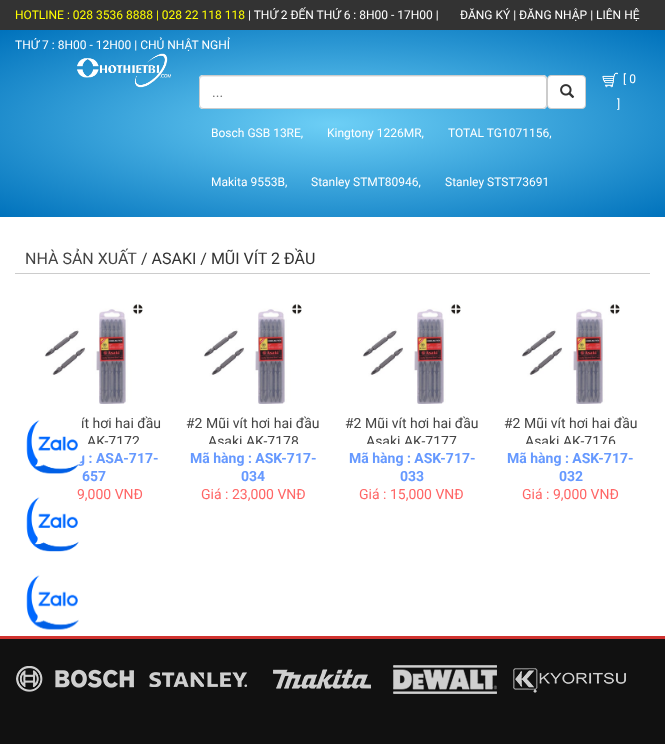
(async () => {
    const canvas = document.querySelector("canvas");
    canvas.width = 665;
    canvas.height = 744;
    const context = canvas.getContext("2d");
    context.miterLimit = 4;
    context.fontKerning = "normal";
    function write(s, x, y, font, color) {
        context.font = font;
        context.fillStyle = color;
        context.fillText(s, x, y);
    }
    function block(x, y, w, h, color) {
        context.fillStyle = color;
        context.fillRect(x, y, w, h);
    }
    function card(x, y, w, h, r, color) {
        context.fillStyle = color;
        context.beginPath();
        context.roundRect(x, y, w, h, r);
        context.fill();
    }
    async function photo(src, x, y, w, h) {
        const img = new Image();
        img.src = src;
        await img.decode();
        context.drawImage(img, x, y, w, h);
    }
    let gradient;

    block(0, 0, 665, 744, "rgb(255, 255, 255)");
    block(0, 0, 665, 30, "rgb(51, 51, 51)");
    write("HOTLINE : 028 3536 8888 | 028 22 118 118", 15, 19, "12px Roboto", "rgb(255, 255, 0)");
    write("| THỨ 2 ĐẾN THỨ 6 : 8H00 - 17H00 |", 248, 19, "12px Roboto", "rgb(255, 255, 255)");
    gradient = context.createRadialGradient(333, 441.52, 0, 333, 441.52, 470);
    gradient.addColorStop(0, "rgb(109, 207, 246)");
    gradient.addColorStop(1, "rgb(0, 114, 188)");
    context.fillStyle = gradient;
    context.beginPath();
    context.rect(0, 30, 665, 187);
    context.save();
    context.clip();
    context.scale(1, 132 / 470);
    context.fillRect(0, 0, 665, 2650);
    context.restore();
    write("THỨ 7 : 8H00 - 12H00 | CHỦ NHẬT NGHỈ", 15, 49, "12px Roboto", "rgb(255, 255, 255)");
    write("ĐĂNG KÝ | ĐĂNG NHẬP | LIÊN HỆ", 460, 19, "12px Roboto", "rgb(255, 255, 255)");
    await photo("media/1.png", 77, 53, 94, 35);
    card(199, 75, 348, 34, 4, "rgb(255, 255, 255)");
    context.fillStyle = "rgb(236, 236, 236)";
    context.beginPath();
    context.moveTo(203, 77);
    context.lineTo(543, 77);
    context.bezierCurveTo(545, 77, 546, 78, 546, 80);
    context.bezierCurveTo(546, 78, 545, 76, 543, 76);
    context.lineTo(203, 76);
    context.lineTo(201, 77);
    context.lineTo(200, 80);
    context.bezierCurveTo(200, 78, 201, 77, 203, 77);
    context.closePath();
    context.fill();
    context.beginPath();
    context.roundRect(199.5, 75.5, 347, 33, 3.5);
    context.strokeStyle = "rgb(204, 204, 204)";
    context.stroke();
    write("...", 212, 97, "14px Roboto", "rgb(117, 117, 117)");
    context.fillStyle = "rgb(255, 255, 255)";
    context.beginPath();
    context.roundRect(547.5, 75.5, 38, 33, 3.5);
    context.fill();
    context.stroke();
    await photo("media/2.png", 560, 84, 15, 14);
    write("Bosch GSB 13RE,", 211, 137, "12px Roboto", "rgb(255, 255, 255)");
    write("Kingtony 1226MR,", 327, 137, "12px Roboto", "rgb(255, 255, 255)");
    write("TOTAL TG1071156,", 448, 137, "12px Roboto", "rgb(255, 255, 255)");
    write("Makita 9553B,", 211, 186, "12px Roboto", "rgb(255, 255, 255)");
    write("Stanley STMT80946,", 311, 186, "12px Roboto", "rgb(255, 255, 255)");
    write("Stanley STST73691", 445, 186, "12px Roboto", "rgb(255, 255, 255)");
    await photo("media/3.png", 602, 72, 16, 16);
    write("[ 0", 623, 83, "12px Roboto", "rgb(255, 255, 255)");
    write("]", 617, 108, "12px Roboto", "rgb(255, 255, 255)");
    block(15, 273, 635, 1, "rgb(204, 204, 204)");
    write("NHÀ SẢN XUẤT", 25, 264, "16px Roboto", "rgb(68, 68, 68)");
    write("/ ASAKI / MŨI VÍT 2 ĐẦU", 141, 264, "16px Roboto", "rgb(51, 51, 51)");
    await photo("media/4.png", 44, 304, 99, 100);
    write("ít hơi hai đầu", 81, 428, "14px Roboto", "rgb(68, 68, 68)");
    context.save();
    context.beginPath();
    context.rect(21, 414, 146, 30);
    context.clip();
    write("AK-7172", 87, 446, "14px Roboto", "rgb(68, 68, 68)");
    context.restore();
    write("g : ASA-717-", 77, 463, "bold 14px Roboto", "rgb(102, 153, 255)");
    write("657", 82, 481, "bold 14px Roboto", "rgb(102, 153, 255)");
    write("9,000 VNĐ", 77, 499, "14px Roboto", "rgb(255, 102, 102)");
    await photo("media/4.png", 203, 304, 99, 100);
    write("#2 Mũi vít hơi hai đầu", 186, 428, "14px Roboto", "rgb(68, 68, 68)");
    context.save();
    context.beginPath();
    context.rect(180, 414, 146, 30);
    context.clip();
    write("Asaki AK-7178", 208, 446, "14px Roboto", "rgb(68, 68, 68)");
    context.restore();
    write("Mã hàng : ASK-717-", 190, 463, "bold 14px Roboto", "rgb(102, 153, 255)");
    write("034", 241, 481, "bold 14px Roboto", "rgb(102, 153, 255)");
    write("Giá : 23,000 VNĐ", 201, 499, "14px Roboto", "rgb(255, 102, 102)");
    await photo("media/4.png", 362, 304, 99, 100);
    write("#2 Mũi vít hơi hai đầu", 345, 428, "14px Roboto", "rgb(68, 68, 68)");
    context.save();
    context.beginPath();
    context.rect(339, 414, 146, 30);
    context.clip();
    write("Asaki AK-7177", 366, 446, "14px Roboto", "rgb(68, 68, 68)");
    context.restore();
    write("Mã hàng : ASK-717-", 349, 463, "bold 14px Roboto", "rgb(102, 153, 255)");
    write("033", 400, 481, "bold 14px Roboto", "rgb(102, 153, 255)");
    write("Giá : 15,000 VNĐ", 359, 499, "14px Roboto", "rgb(255, 102, 102)");
    await photo("media/4.png", 521, 304, 99, 100);
    write("#2 Mũi vít hơi hai đầu", 504, 428, "14px Roboto", "rgb(68, 68, 68)");
    context.save();
    context.beginPath();
    context.rect(498, 414, 146, 30);
    context.clip();
    write("Asaki AK-7176", 525, 446, "14px Roboto", "rgb(68, 68, 68)");
    context.restore();
    write("Mã hàng : ASK-717-", 507, 463, "bold 14px Roboto", "rgb(102, 153, 255)");
    write("032", 559, 481, "bold 14px Roboto", "rgb(102, 153, 255)");
    write("Giá : 9,000 VNĐ", 522, 499, "14px Roboto", "rgb(255, 102, 102)");
    await photo("media/5.png", 26, 418, 57, 56);
    await photo("media/6.png", 26, 494, 53, 58);
    await photo("media/7.png", 26, 575, 53, 55);
    block(0, 639, 665, 105, "rgb(17, 17, 17)");
    block(0, 636, 665, 3, "rgb(208, 50, 47)");
    await photo("media/8.png", 16, 666, 118, 26);
    await photo("media/9.png", 149, 672, 98, 15);
    await photo("media/10.png", 273, 669, 98, 20);
    await photo("media/11.png", 393, 665, 104, 29);
    await photo("media/12.png", 513, 668, 113, 25);
})();
